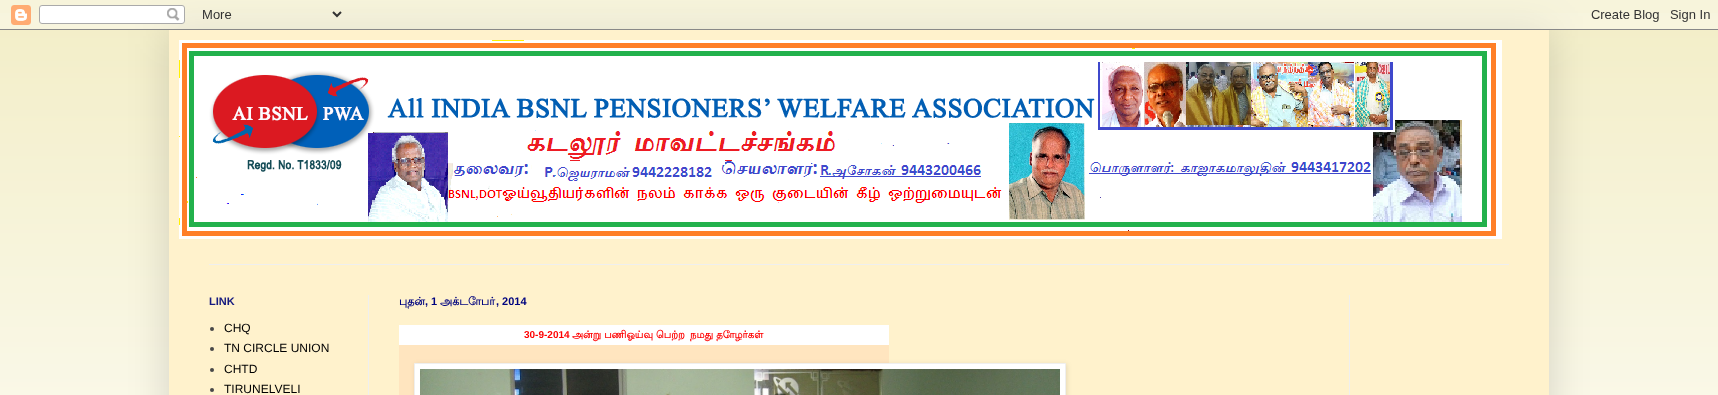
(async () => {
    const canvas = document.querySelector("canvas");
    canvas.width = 1718;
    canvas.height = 395;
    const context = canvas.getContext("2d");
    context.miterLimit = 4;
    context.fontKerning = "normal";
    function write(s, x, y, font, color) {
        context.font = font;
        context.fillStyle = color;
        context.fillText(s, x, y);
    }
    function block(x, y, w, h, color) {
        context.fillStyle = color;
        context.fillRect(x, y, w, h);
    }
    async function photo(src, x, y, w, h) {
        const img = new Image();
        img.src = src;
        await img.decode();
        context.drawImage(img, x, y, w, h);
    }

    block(0, 0, 1718, 395, "rgb(242, 237, 196)");
    await photo("media/2.png", 0, 13, 1718, 382);
    context.fillStyle = "rgba(0, 0, 0, 0.15)";
    context.filter = "blur(20px)";
    context.beginPath();
    context.rect(169, 30, 1380, 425);
    context.fill();
    context.filter = "none";
    await photo("media/1.png", 0, 0, 1718, 30);
    block(169, 30, 1380, 365, "rgb(255, 242, 204)");
    await photo("media/3.png", 179, 40, 1323, 199);
    block(209, 264, 1300, 1, "rgb(239, 239, 239)");
    block(368, 295, 1, 100, "rgb(239, 239, 239)");
    block(1349, 295, 1, 100, "rgb(239, 239, 239)");
    write("LINK", 209, 305, "bold 11px Liberation Sans", "rgb(22, 26, 127)");
    context.fillStyle = "rgb(72, 72, 72)";
    context.beginPath();
    context.arc(212, 329, 2, 0, Math.PI * 2);
    context.fill();
    write("CHQ", 224, 332, "12px Liberation Sans", "rgb(0, 0, 0)");
    context.fillStyle = "rgb(72, 72, 72)";
    context.beginPath();
    context.arc(212, 349, 2, 0, Math.PI * 2);
    context.fill();
    write("TN CIRCLE UNION", 224, 352, "12px Liberation Sans", "rgb(0, 0, 0)");
    context.fillStyle = "rgb(72, 72, 72)";
    context.beginPath();
    context.arc(212, 370, 2, 0, Math.PI * 2);
    context.fill();
    write("CHTD", 224, 373, "12px Liberation Sans", "rgb(0, 0, 0)");
    context.fillStyle = "rgb(72, 72, 72)";
    context.beginPath();
    context.arc(212, 390, 2, 0, Math.PI * 2);
    context.fill();
    write("TIRUNELVELI", 224, 393, "12px Liberation Sans", "rgb(0, 0, 0)");
    write("புதன்", 399, 305, "bold 11px Lohit Tamil", "rgb(0, 4, 127)");
    write(", 1", 425, 305, "bold 11px Liberation Sans", "rgb(0, 4, 127)");
    write("அக்டோபர்", 440, 305, "bold 11px Lohit Tamil", "rgb(0, 4, 127)");
    write(", 2014", 496, 305, "bold 11px Liberation Sans", "rgb(0, 4, 127)");
    block(399, 345, 490, 50, "rgb(255, 229, 191)");
    block(399, 325, 490, 20, "rgb(255, 255, 255)");
    write("30-9-2014", 524, 338, "bold 10px Liberation Sans", "rgb(255, 0, 0)");
    write("அன்று பணிஓய்வு பெற்ற", 572, 338, "bold 10px Lohit Tamil", "rgb(255, 0, 0)");
    write("நமது தோழர்கள்", 690, 338, "bold 10px Lohit Tamil", "rgb(255, 0, 0)");
    context.fillStyle = "rgba(0, 0, 0, 0.1)";
    context.filter = "blur(2.5px)";
    context.beginPath();
    context.rect(415, 364, 652, 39);
    context.fill();
    context.filter = "none";
    context.fillStyle = "rgb(255, 255, 255)";
    context.beginPath();
    context.rect(414.5, 363.5, 651, 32);
    context.fill();
    context.strokeStyle = "rgb(239, 239, 239)";
    context.stroke();
    await photo("media/4.png", 420, 369, 640, 26);
})();
